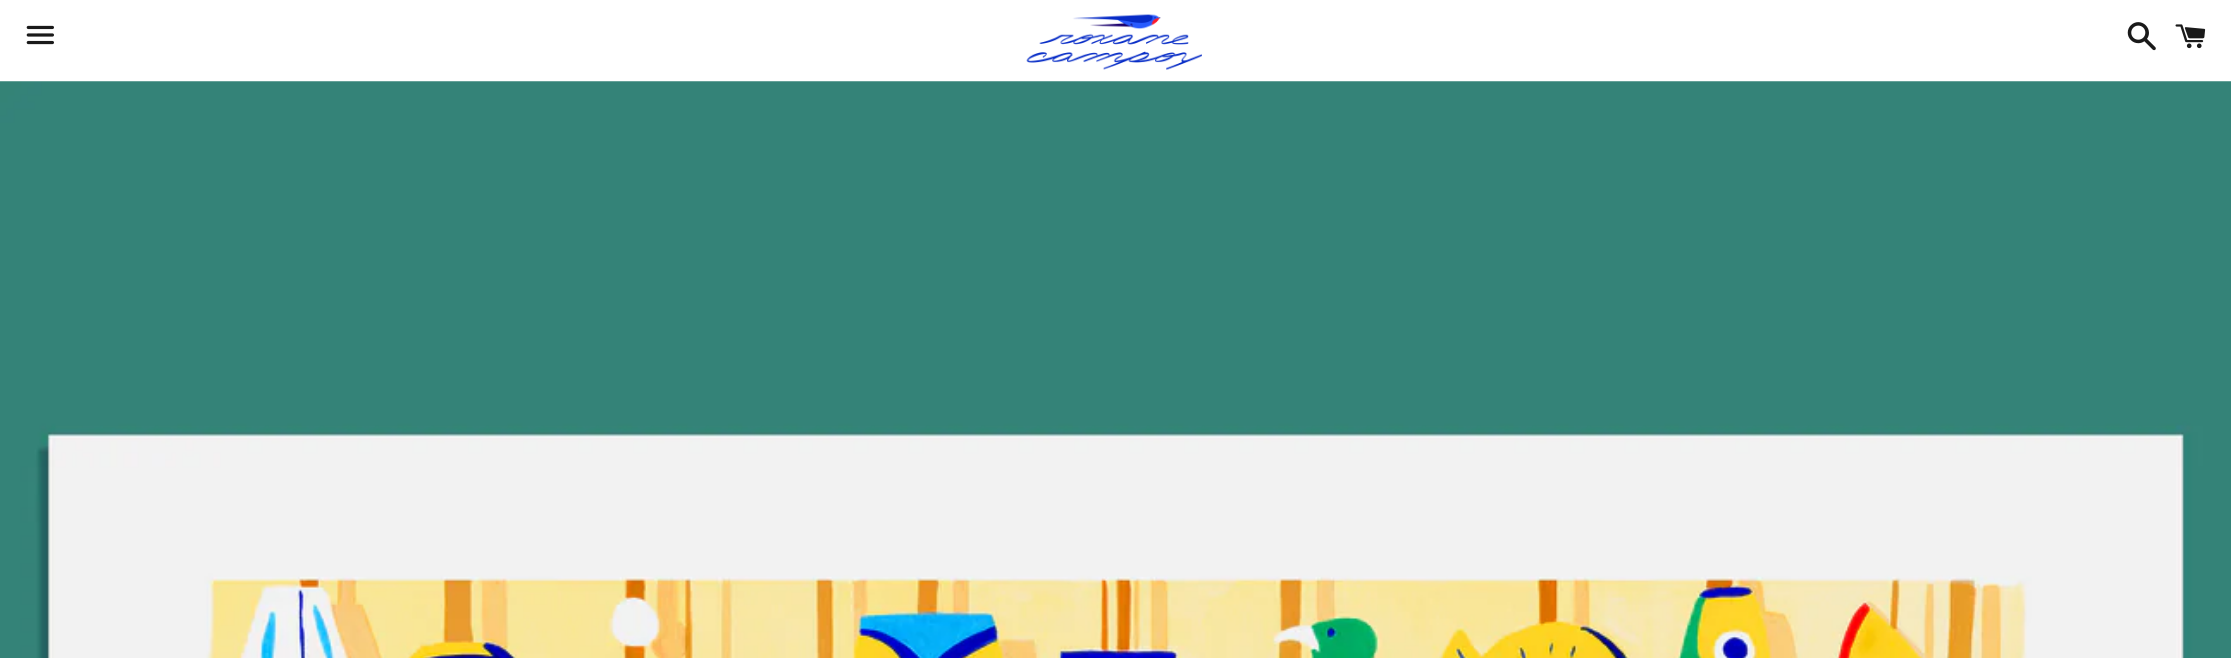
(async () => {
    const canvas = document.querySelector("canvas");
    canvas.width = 2231;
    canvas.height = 658;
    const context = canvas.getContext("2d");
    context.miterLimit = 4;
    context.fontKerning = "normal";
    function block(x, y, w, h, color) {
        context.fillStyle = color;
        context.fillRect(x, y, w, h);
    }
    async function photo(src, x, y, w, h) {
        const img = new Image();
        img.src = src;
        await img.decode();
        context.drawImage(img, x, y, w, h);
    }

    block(0, 0, 2231, 658, "rgb(255, 255, 255)");
    await photo("media/1.png", 26, 25, 28, 20);
    await photo("media/2.png", 1026, 14, 176, 56);
    await photo("media/3.png", 2127, 22, 29, 29);
    await photo("media/4.png", 2175, 24, 31, 25);
    await photo("media/5.png", 0, 81, 2231, 577);
})();
